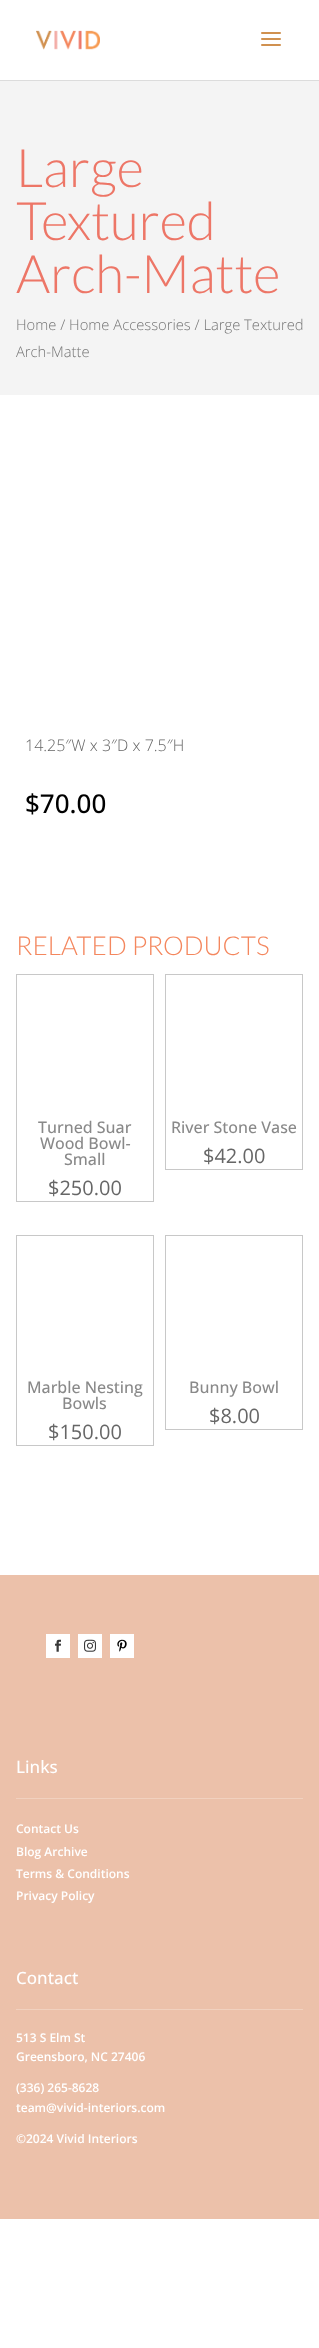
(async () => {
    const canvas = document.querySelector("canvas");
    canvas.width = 319;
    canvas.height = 2348;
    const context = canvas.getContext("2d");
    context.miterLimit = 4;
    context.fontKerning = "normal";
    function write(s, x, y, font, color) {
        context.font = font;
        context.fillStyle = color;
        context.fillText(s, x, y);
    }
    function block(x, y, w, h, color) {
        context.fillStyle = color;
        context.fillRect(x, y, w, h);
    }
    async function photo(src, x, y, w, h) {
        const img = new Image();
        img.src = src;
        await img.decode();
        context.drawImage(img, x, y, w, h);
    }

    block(0, 0, 319, 2348, "rgb(255, 255, 255)");
    block(0, 80, 319, 1, "rgb(220, 220, 220)");
    await photo("media/1.png", 36, 30, 64, 20);
    await photo("media/2.png", 261, 32, 20, 14);
    block(0, 81, 319, 314, "rgb(244, 244, 244)");
    write("Large", 16, 187, "300 53px Lato", "rgb(237, 118, 103)");
    write("Textured", 16, 240, "300 53px Lato", "rgb(237, 118, 103)");
    write("Arch-Matte", 16, 293, "300 53px Lato", "rgb(237, 118, 103)");
    write("Home / Home Accessories / Large Textured", 16, 330, "300 14.75px Open Sans", "rgb(118, 118, 118)");
    write("Arch-Matte", 16, 357, "300 14.75px Open Sans", "rgb(118, 118, 118)");
    write("14.25″W x 3″D x 7.5″H", 25, 751, "300 16px Open Sans", "rgb(102, 102, 102)");
    write("$70.00", 25, 813, "500 26px Open Sans", "rgb(0, 0, 0)");
    write("RELATED PRODUCTS", 16, 955, "300 26px Lato", "rgb(244, 135, 94)");
    context.strokeStyle = "rgb(200, 200, 200)";
    context.strokeRect(16.5, 974.5, 137, 227);
    write("Turned Suar", 38, 1133, "500 16px Open Sans", "rgb(137, 137, 137)");
    write("Wood Bowl-", 40, 1149, "500 16px Open Sans", "rgb(137, 137, 137)");
    write("Small", 64, 1165, "500 16px Open Sans", "rgb(137, 137, 137)");
    write("$250.00", 48, 1195, "20px Open Sans", "rgb(102, 102, 102)");
    context.strokeRect(165.5, 974.5, 137, 195);
    write("River Stone Vase", 171, 1133, "500 16px Open Sans", "rgb(137, 137, 137)");
    write("$42.00", 203, 1163, "20px Open Sans", "rgb(102, 102, 102)");
    context.strokeRect(16.5, 1235.5, 137, 210);
    write("Marble Nesting", 27, 1393, "500 16px Open Sans", "rgb(137, 137, 137)");
    write("Bowls", 62, 1409, "500 16px Open Sans", "rgb(137, 137, 137)");
    write("$150.00", 48, 1439, "20px Open Sans", "rgb(102, 102, 102)");
    context.strokeRect(165.5, 1235.5, 137, 194);
    write("Bunny Bowl", 189, 1393, "500 16px Open Sans", "rgb(137, 137, 137)");
    write("$8.00", 209, 1423, "20px Open Sans", "rgb(102, 102, 102)");
    block(0, 1575, 319, 644, "rgb(236, 193, 170)");
    block(46, 1634, 24, 24, "rgb(255, 255, 255)");
    await photo("media/3.png", 55, 1639, 6, 13);
    block(78, 1634, 24, 24, "rgb(255, 255, 255)");
    await photo("media/4.png", 84, 1639, 12, 13);
    block(110, 1634, 24, 24, "rgb(255, 255, 255)");
    await photo("media/5.png", 117, 1639, 10, 13);
    write("Links", 16, 1773, "500 17px Open Sans", "rgb(255, 255, 255)");
    block(16, 1798, 287, 1, "rgb(241, 209, 191)");
    write("Contact Us", 16, 1833, "600 12px Open Sans", "rgb(255, 255, 255)");
    write("Blog Archive", 16, 1856, "600 12px Open Sans", "rgb(255, 255, 255)");
    write("Terms & Conditions", 16, 1878, "600 12px Open Sans", "rgb(255, 255, 255)");
    write("Privacy Policy", 16, 1900, "600 12px Open Sans", "rgb(255, 255, 255)");
    write("Contact", 16, 1984, "500 17px Open Sans", "rgb(255, 255, 255)");
    block(16, 2009, 287, 1, "rgb(241, 209, 191)");
    write("513 S Elm St", 16, 2042, "600 12px Open Sans", "rgb(255, 255, 255)");
    write("Greensboro, NC 27406", 16, 2061, "600 12px Open Sans", "rgb(255, 255, 255)");
    write("(336) 265-8628", 16, 2092, "600 12px Open Sans", "rgb(255, 255, 255)");
    write("team@vivid-interiors.com", 16, 2112, "600 12px Open Sans", "rgb(255, 255, 255)");
    write("©2024 Vivid Interiors", 16, 2143, "600 12px Open Sans", "rgb(255, 255, 255)");
})();
